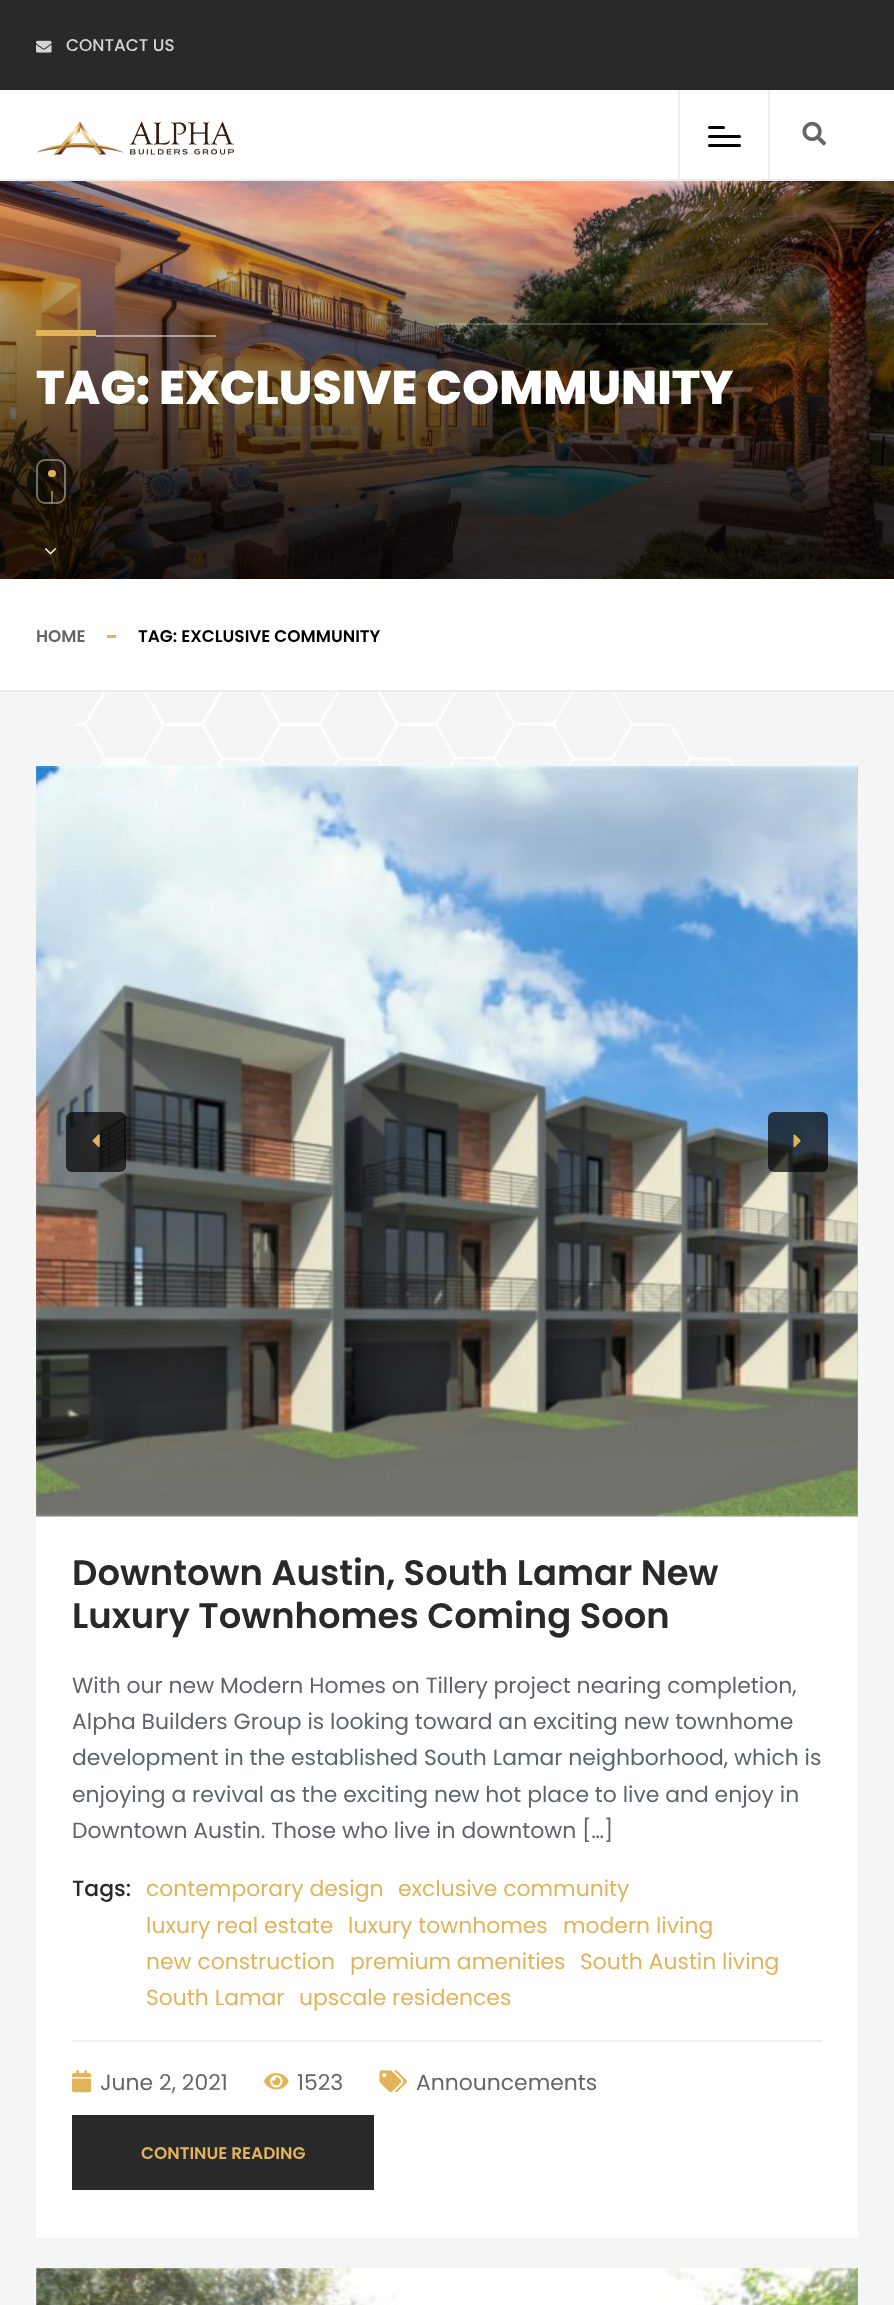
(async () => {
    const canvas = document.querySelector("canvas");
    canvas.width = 894;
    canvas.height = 2305;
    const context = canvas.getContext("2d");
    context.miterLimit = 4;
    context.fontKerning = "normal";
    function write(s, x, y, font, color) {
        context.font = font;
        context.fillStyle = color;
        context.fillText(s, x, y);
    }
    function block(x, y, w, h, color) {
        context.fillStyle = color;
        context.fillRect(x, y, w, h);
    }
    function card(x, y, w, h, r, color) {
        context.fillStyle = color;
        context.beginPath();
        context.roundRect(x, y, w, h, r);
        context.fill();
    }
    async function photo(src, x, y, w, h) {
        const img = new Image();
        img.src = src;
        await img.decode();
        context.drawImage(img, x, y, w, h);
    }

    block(0, 0, 894, 2305, "rgb(255, 255, 255)");
    block(0, 0, 894, 90, "rgb(41, 41, 41)");
    await photo("media/1.png", 36, 40, 16, 13);
    write("CONTACT US", 66, 51, "500 16.9px Poppins", "rgb(212, 212, 212)");
    block(0, 179, 894, 2, "rgb(238, 238, 238)");
    await photo("media/2.png", 36, 121, 198, 34);
    block(678, 90, 2, 90, "rgb(238, 238, 238)");
    card(708, 126, 17, 3, 1.5, "rgb(0, 0, 0)");
    card(708, 135, 33, 3, 1.5, "rgb(0, 0, 0)");
    card(708, 144, 33, 3, 1.5, "rgb(0, 0, 0)");
    block(768, 90, 2, 90, "rgb(238, 238, 238)");
    await photo("media/3.png", 802, 121, 24, 25);
    await photo("media/4.png", 0, 181, 894, 398);
    block(438, 323, 330, 2, "rgba(255, 255, 255, 0.2)");
    block(36, 330, 60, 6, "rgb(225, 180, 91)");
    block(96, 335, 120, 2, "rgba(255, 255, 255, 0.5)");
    write("TAG: EXCLUSIVE COMMUNITY", 36, 404, "800 47.2px Poppins", "rgb(255, 255, 255)");
    context.beginPath();
    context.roundRect(37, 460, 28, 43, 8);
    context.strokeStyle = "rgba(255, 255, 255, 0.4)";
    context.lineWidth = 2;
    context.stroke();
    card(48, 470, 8, 7, 3.5, "rgb(225, 180, 91)");
    block(51, 491, 2, 12, "rgba(255, 255, 255, 0.4)");
    await photo("media/5.png", 45, 548, 11, 7);
    block(0, 690, 894, 2, "rgb(238, 238, 238)");
    write("HOME", 36, 642, "600 16.9px Poppins", "rgb(102, 102, 102)");
    block(107, 635, 9, 3, "rgb(225, 180, 91)");
    write("TAG: EXCLUSIVE COMMUNITY", 138, 642, "600 16.9px Poppins", "rgb(0, 0, 0)");
    block(0, 692, 894, 1613, "rgb(245, 245, 245)");
    await photo("media/6.png", 75, 691, 662, 77);
    context.fillStyle = "rgb(255, 255, 255)";
    context.beginPath();
    context.moveTo(107, 761);
    context.lineTo(162, 793);
    context.lineTo(144, 825);
    context.lineTo(88, 793);
    context.closePath();
    context.fill();
    context.beginPath();
    context.moveTo(161, 792);
    context.lineTo(107, 761);
    context.lineTo(143, 761);
    context.closePath();
    context.fill();
    await photo("media/7.png", 36, 766, 822, 751);
    await photo("media/8.png", 857, 766, 1, 751);
    card(66, 1112, 60, 60, 6, "rgba(0, 0, 0, 0.7)");
    await photo("media/9.png", 92, 1134, 8, 14);
    card(768, 1112, 60, 60, 6, "rgba(0, 0, 0, 0.7)");
    await photo("media/10.png", 793, 1134, 8, 14);
    block(36, 1517, 822, 721, "rgb(255, 255, 255)");
    write("Downtown Austin, South Lamar New", 72, 1585, "600 35.4px Poppins", "rgb(41, 41, 41)");
    write("Luxury Townhomes Coming Soon", 72, 1628, "600 35.4px Poppins", "rgb(41, 41, 41)");
    write("With our new Modern Homes on Tillery project nearing completion,", 72, 1693, "21.9px Poppins", "rgb(94, 100, 106)");
    write("Alpha Builders Group is looking toward an exciting new townhome", 72, 1729, "21.9px Poppins", "rgb(94, 100, 106)");
    write("development in the established South Lamar neighborhood, which is", 72, 1765, "21.9px Poppins", "rgb(94, 100, 106)");
    write("enjoying a revival as the exciting new hot place to live and enjoy in", 72, 1802, "21.9px Poppins", "rgb(94, 100, 106)");
    write("Downtown Austin. Those who live in downtown […]", 72, 1838, "21.9px Poppins", "rgb(94, 100, 106)");
    write("Tags:", 72, 1896, "500 21.9px Poppins", "rgb(41, 41, 41)");
    write("contemporary design", 146, 1896, "21.9px Poppins", "rgb(225, 180, 91)");
    write("exclusive community", 398, 1896, "21.9px Poppins", "rgb(225, 180, 91)");
    write("luxury real estate", 146, 1933, "21.9px Poppins", "rgb(225, 180, 91)");
    write("luxury townhomes", 348, 1933, "21.9px Poppins", "rgb(225, 180, 91)");
    write("modern living", 563, 1933, "21.9px Poppins", "rgb(225, 180, 91)");
    write("new construction", 146, 1969, "21.9px Poppins", "rgb(225, 180, 91)");
    write("premium amenities", 350, 1969, "21.9px Poppins", "rgb(225, 180, 91)");
    write("South Austin living", 580, 1969, "21.9px Poppins", "rgb(225, 180, 91)");
    write("South Lamar", 146, 2005, "21.9px Poppins", "rgb(225, 180, 91)");
    write("upscale residences", 299, 2005, "21.9px Poppins", "rgb(225, 180, 91)");
    block(72, 2040, 750, 2, "rgb(238, 238, 238)");
    await photo("media/11.png", 72, 2070, 20, 23);
    write("June 2, 2021", 100, 2090, "21.9px Poppins", "rgb(102, 102, 102)");
    await photo("media/12.png", 264, 2073, 25, 17);
    write("1523", 297, 2090, "21.9px Poppins", "rgb(102, 102, 102)");
    await photo("media/13.png", 379, 2070, 28, 23);
    write("Announcements", 416, 2090, "21.9px Poppins", "rgb(102, 102, 102)");
    block(72, 2115, 302, 75, "rgb(41, 41, 41)");
    write("CONTINUE READING", 141, 2159, "600 16.9px Poppins", "rgb(225, 180, 91)");
    await photo("media/14.png", 36, 2268, 822, 37);
    await photo("media/15.png", 857, 2268, 1, 37);
})();
